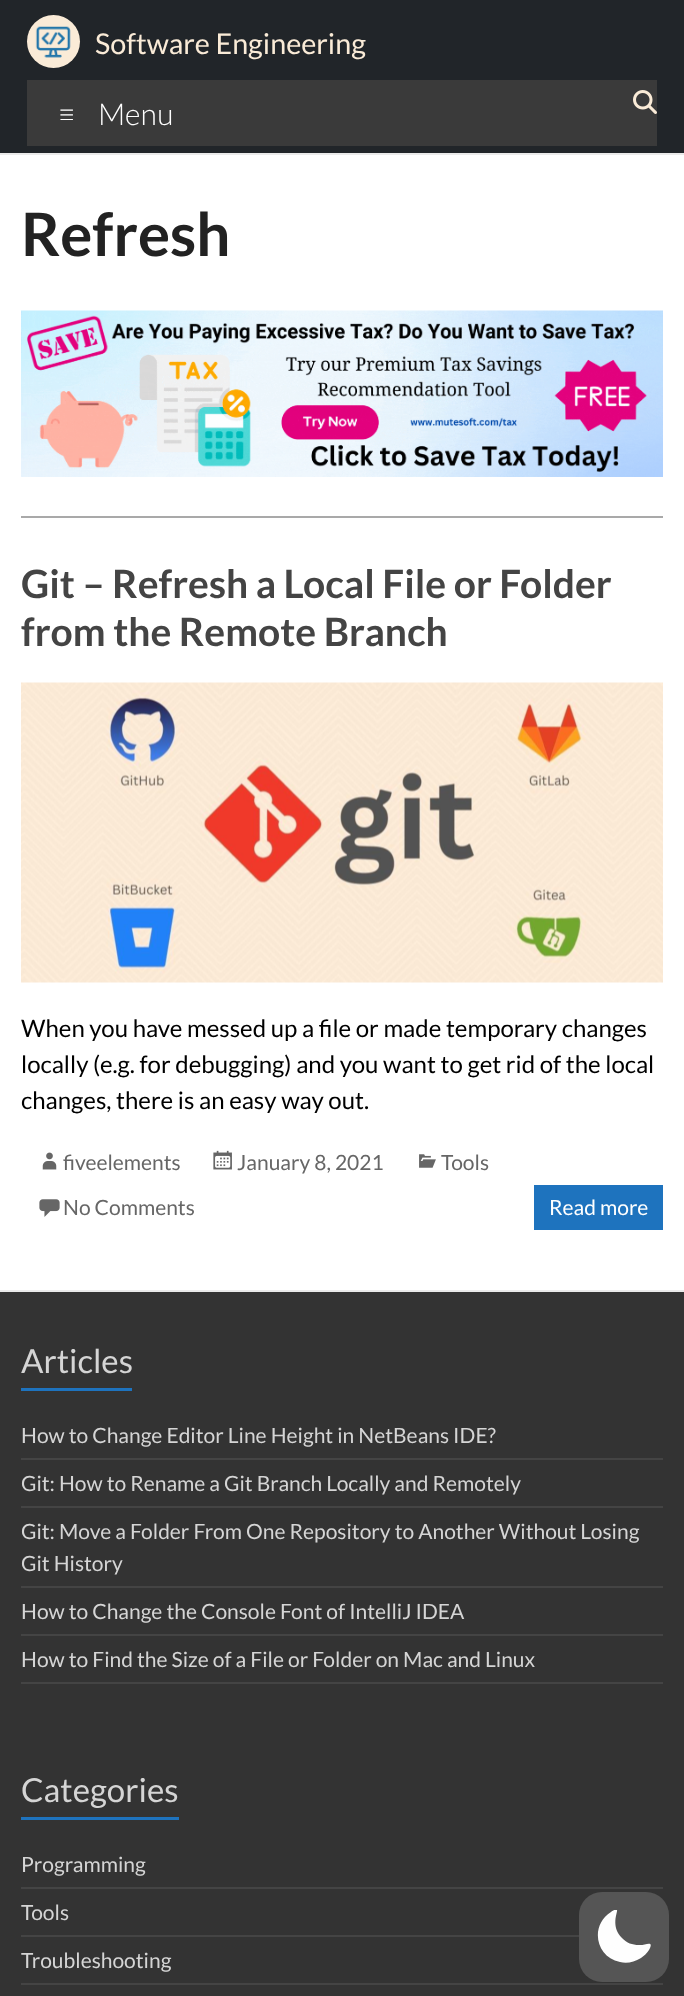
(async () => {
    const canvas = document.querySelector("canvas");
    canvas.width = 684;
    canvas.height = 1996;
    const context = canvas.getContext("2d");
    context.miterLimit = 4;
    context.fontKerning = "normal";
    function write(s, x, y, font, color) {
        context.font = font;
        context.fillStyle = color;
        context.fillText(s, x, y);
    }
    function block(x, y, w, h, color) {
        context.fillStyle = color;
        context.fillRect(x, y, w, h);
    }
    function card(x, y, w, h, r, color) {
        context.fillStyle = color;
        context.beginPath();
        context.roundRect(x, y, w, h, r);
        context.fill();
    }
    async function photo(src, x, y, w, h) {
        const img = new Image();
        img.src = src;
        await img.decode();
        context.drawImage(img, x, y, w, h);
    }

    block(0, 0, 684, 1996, "rgb(255, 255, 255)");
    block(0, 0, 684, 153, "rgb(33, 37, 41)");
    block(0, 153, 684, 2, "rgb(234, 234, 234)");
    context.fillStyle = "rgb(250, 235, 215)";
    context.beginPath();
    context.arc(53.5, 41.5, 26.5, 0, Math.PI * 2);
    context.fill();
    await photo("media/1.png", 35, 26, 36, 32);
    write("Software Engineering", 95, 54, "28.75px Lato", "rgb(250, 235, 215)");
    block(27, 80, 630, 66, "rgb(58, 58, 58)");
    write("≡", 58, 125, "300 30px Lato", "rgb(255, 255, 255)");
    write("Menu", 98, 125, "300 30px Lato", "rgb(255, 255, 255)");
    await photo("media/2.png", 633, 90, 24, 24);
    write("Refresh", 21, 256, "bold 60px Lato", "rgb(34, 34, 34)");
    await photo("media/3.png", 21, 310, 642, 167);
    block(21, 516, 642, 2, "rgb(169, 169, 169)");
    write("Git – Refresh a Local File or Folder", 21, 598, "bold 39px Lato", "rgb(68, 68, 68)");
    write("from the Remote Branch", 21, 646, "bold 39px Lato", "rgb(68, 68, 68)");
    await photo("media/4.png", 21, 682, 642, 301);
    write("When you have messed up a file or made temporary changes", 21, 1037, "24px Lato", "rgb(0, 0, 0)");
    write("locally (e.g. for debugging) and you want to get rid of the local", 21, 1073, "24px Lato", "rgb(0, 0, 0)");
    write("changes, there is an easy way out.", 21, 1109, "24px Lato", "rgb(0, 0, 0)");
    await photo("media/5.png", 42, 1152, 15, 18);
    write("fiveelements", 63, 1170, "21px Lato", "rgb(102, 102, 102)");
    await photo("media/6.png", 213, 1150, 19, 20);
    write("January 8, 2021", 237, 1170, "21px Lato", "rgb(102, 102, 102)");
    await photo("media/7.png", 419, 1154, 17, 14);
    write("Tools", 441, 1170, "21px Lato", "rgb(102, 102, 102)");
    await photo("media/8.png", 39, 1199, 21, 18);
    write("No Comments", 63, 1215, "21px Lato", "rgb(102, 102, 102)");
    block(534, 1185, 129, 45, "rgb(30, 115, 190)");
    write("Read more", 549, 1215, "21px Lato", "rgb(255, 255, 255)");
    block(0, 1292, 684, 704, "rgb(51, 51, 51)");
    block(0, 1290, 684, 2, "rgb(234, 234, 234)");
    write("Articles", 21, 1373, "33px Lato", "rgb(213, 213, 213)");
    block(21, 1388, 111, 3, "rgb(30, 115, 190)");
    block(21, 1458, 642, 2, "rgb(68, 68, 68)");
    write("How to Change Editor Line Height in NetBeans IDE?", 21, 1443, "21px Lato", "rgb(213, 213, 213)");
    block(21, 1506, 642, 2, "rgb(68, 68, 68)");
    write("Git: How to Rename a Git Branch Locally and Remotely", 21, 1491, "21px Lato", "rgb(213, 213, 213)");
    block(21, 1586, 642, 2, "rgb(68, 68, 68)");
    write("Git: Move a Folder From One Repository to Another Without Losing", 21, 1539, "21px Lato", "rgb(213, 213, 213)");
    write("Git History", 21, 1571, "21px Lato", "rgb(213, 213, 213)");
    block(21, 1634, 642, 2, "rgb(68, 68, 68)");
    write("How to Change the Console Font of IntelliJ IDEA", 21, 1619, "21px Lato", "rgb(213, 213, 213)");
    block(21, 1682, 642, 2, "rgb(68, 68, 68)");
    write("How to Find the Size of a File or Folder on Mac and Linux", 21, 1667, "21px Lato", "rgb(213, 213, 213)");
    write("Categories", 21, 1802, "33px Lato", "rgb(213, 213, 213)");
    block(21, 1817, 158, 3, "rgb(30, 115, 190)");
    block(21, 1887, 642, 2, "rgb(68, 68, 68)");
    write("Programming", 21, 1872, "21px Lato", "rgb(213, 213, 213)");
    block(21, 1935, 558, 2, "rgb(68, 68, 68)");
    write("Tools", 21, 1920, "21px Lato", "rgb(213, 213, 213)");
    block(21, 1983, 642, 2, "rgb(68, 68, 68)");
    write("Troubleshooting", 21, 1968, "21px Lato", "rgb(213, 213, 213)");
    card(579, 1892, 90, 90, 23, "rgb(85, 85, 85)");
    context.save();
    context.beginPath();
    context.rect(597, 1910, 54, 54);
    context.clip();
    context.fillStyle = "rgb(254, 254, 254)";
    context.beginPath();
    context.moveTo(617, 1910);
    context.bezierCurveTo(618, 1912, 610, 1926, 622, 1938);
    context.bezierCurveTo(627, 1943, 632, 1945, 639, 1945);
    context.bezierCurveTo(644, 1946, 655, 1939, 649, 1950);
    context.bezierCurveTo(647, 1953, 644, 1956, 641, 1958);
    context.bezierCurveTo(634, 1962, 627, 1964, 620, 1962);
    context.bezierCurveTo(595, 1957, 590, 1925, 611, 1912);
    context.bezierCurveTo(612, 1911, 615, 1909, 617, 1910);
    context.closePath();
    context.fill("evenodd");
    context.restore();
})();
